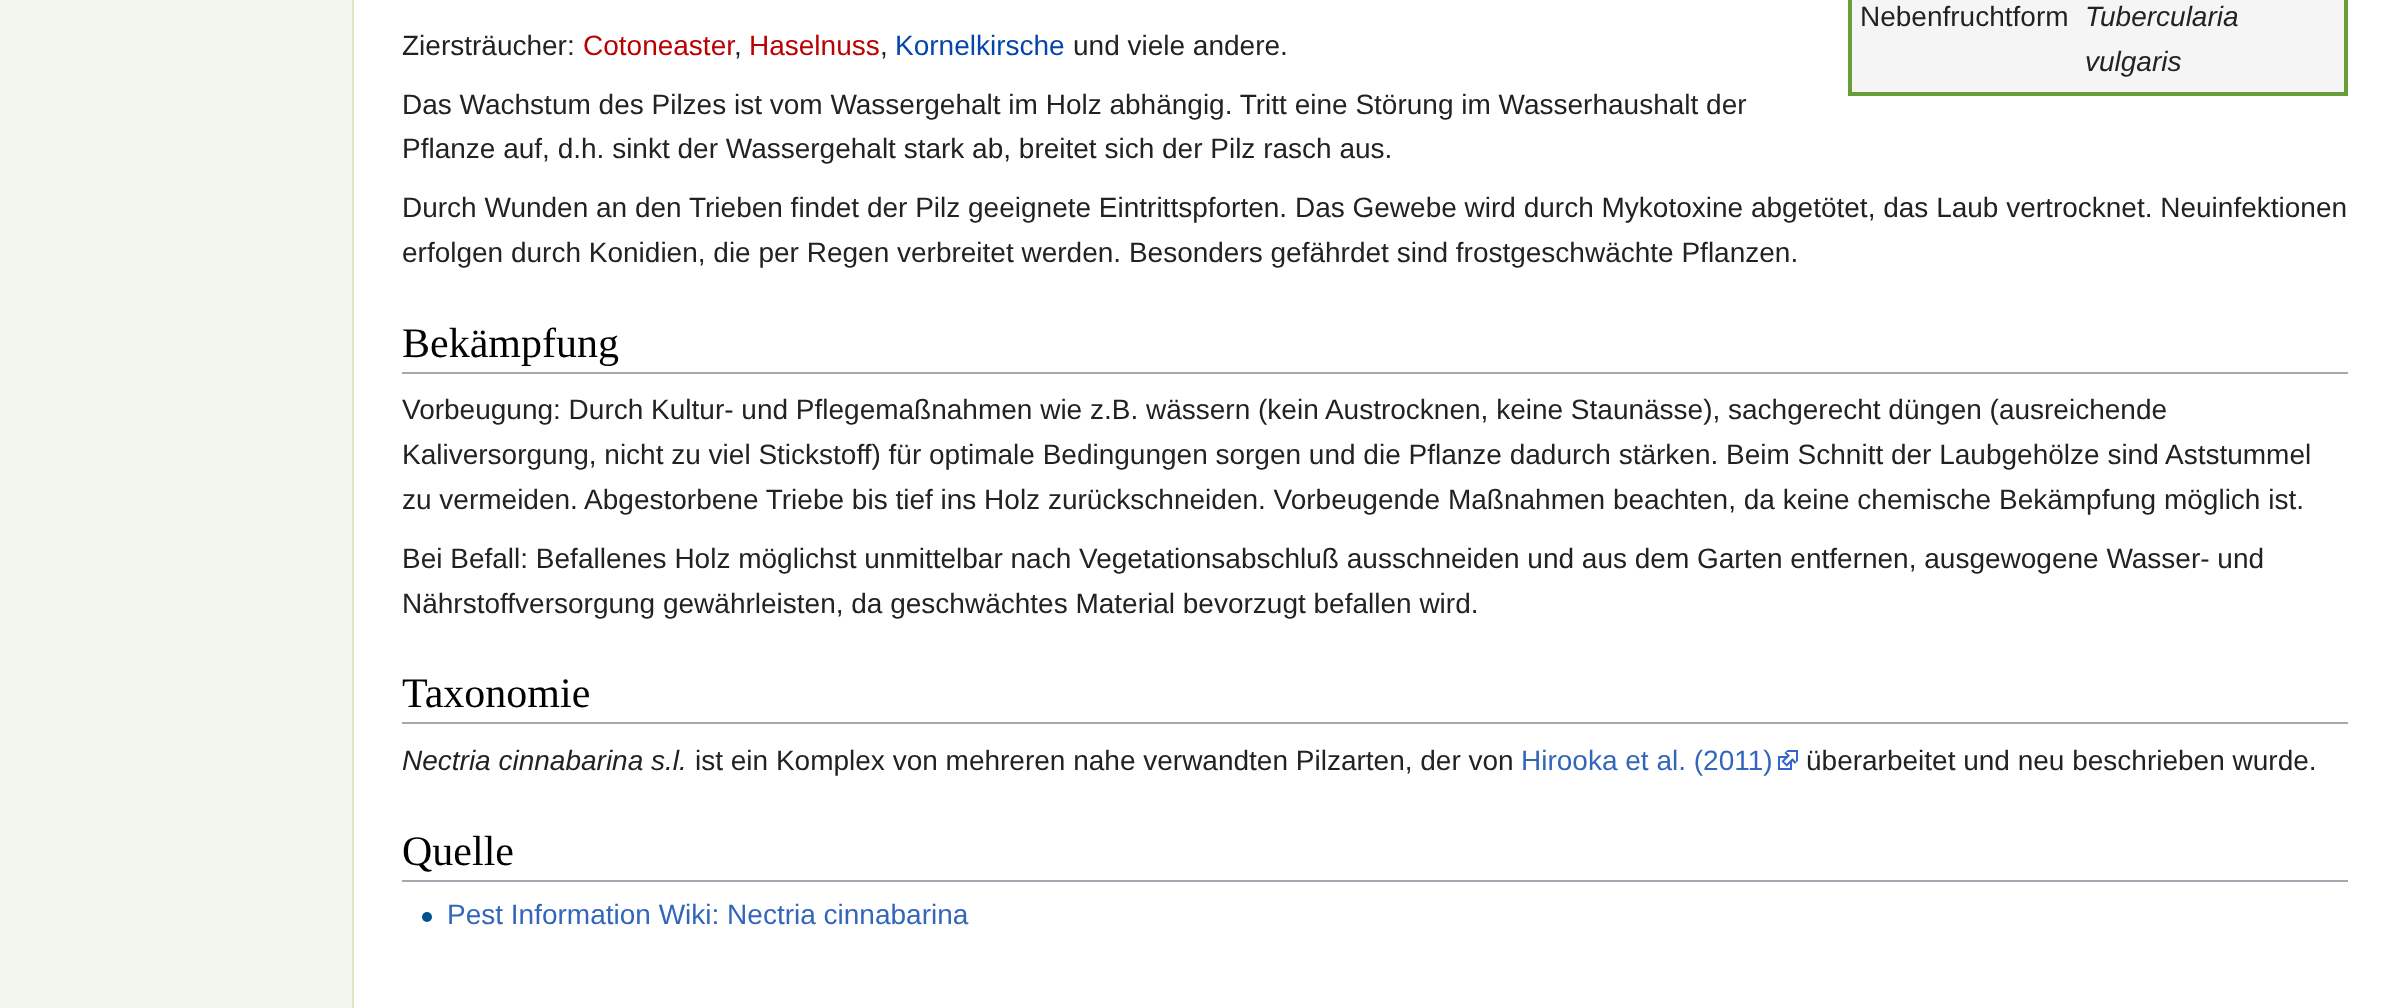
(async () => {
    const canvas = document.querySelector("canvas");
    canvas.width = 2395;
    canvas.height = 1008;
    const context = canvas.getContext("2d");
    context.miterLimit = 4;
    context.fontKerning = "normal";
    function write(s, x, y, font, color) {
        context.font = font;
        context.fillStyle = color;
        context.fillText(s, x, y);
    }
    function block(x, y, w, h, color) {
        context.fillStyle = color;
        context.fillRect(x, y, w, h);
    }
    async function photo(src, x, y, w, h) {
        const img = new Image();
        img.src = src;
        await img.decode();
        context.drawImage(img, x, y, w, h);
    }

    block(0, 0, 2395, 1008, "rgb(242, 245, 237)");
    block(354, 0, 2041, 1008, "rgb(255, 255, 255)");
    block(352, 0, 2, 1008, "rgb(217, 232, 192)");
    write("Ziersträucher:", 402, 55, "28px Liberation Sans", "rgb(34, 34, 34)");
    write("Cotoneaster", 583, 55, "28px Liberation Sans", "rgb(186, 0, 0)");
    write(",", 734, 55, "28px Liberation Sans", "rgb(34, 34, 34)");
    write("Haselnuss", 749, 55, "28px Liberation Sans", "rgb(186, 0, 0)");
    write(",", 880, 55, "28px Liberation Sans", "rgb(34, 34, 34)");
    write("Kornelkirsche", 895, 55, "28px Liberation Sans", "rgb(6, 69, 173)");
    write("und viele andere.", 1073, 55, "28px Liberation Sans", "rgb(34, 34, 34)");
    block(1852, 0, 492, 92, "rgb(245, 245, 245)");
    block(2344, 0, 4, 96, "rgb(103, 158, 55)");
    block(1848, 92, 500, 4, "rgb(103, 158, 55)");
    block(1848, 0, 4, 96, "rgb(103, 158, 55)");
    write("Nebenfruchtform", 1860, 26, "28px Liberation Sans", "rgb(34, 34, 34)");
    write("Tubercularia", 2085, 26, "italic 28px Liberation Sans", "rgb(34, 34, 34)");
    write("vulgaris", 2085, 71, "italic 28px Liberation Sans", "rgb(34, 34, 34)");
    write("Das Wachstum des Pilzes ist vom Wassergehalt im Holz abhängig. Tritt eine Störung im Wasserhaushalt der", 402, 114, "28px Liberation Sans", "rgb(34, 34, 34)");
    write("Pflanze auf, d.h. sinkt der Wassergehalt stark ab, breitet sich der Pilz rasch aus.", 402, 158, "28px Liberation Sans", "rgb(34, 34, 34)");
    write("Durch Wunden an den Trieben findet der Pilz geeignete Eintrittspforten. Das Gewebe wird durch Mykotoxine abgetötet, das Laub vertrocknet. Neuinfektionen", 402, 217, "28px Liberation Sans", "rgb(34, 34, 34)");
    write("erfolgen durch Konidien, die per Regen verbreitet werden. Besonders gefährdet sind frostgeschwächte Pflanzen.", 402, 262, "28px Liberation Sans", "rgb(34, 34, 34)");
    block(402, 372, 1946, 2, "rgb(162, 169, 177)");
    write("Bekämpfung", 402, 357, "42px Liberation Serif", "rgb(0, 0, 0)");
    write("Vorbeugung: Durch Kultur- und Pflegemaßnahmen wie z.B. wässern (kein Austrocknen, keine Staunässe), sachgerecht düngen (ausreichende", 402, 419, "28px Liberation Sans", "rgb(34, 34, 34)");
    write("Kaliversorgung, nicht zu viel Stickstoff) für optimale Bedingungen sorgen und die Pflanze dadurch stärken. Beim Schnitt der Laubgehölze sind Aststummel", 402, 464, "28px Liberation Sans", "rgb(34, 34, 34)");
    write("zu vermeiden. Abgestorbene Triebe bis tief ins Holz zurückschneiden. Vorbeugende Maßnahmen beachten, da keine chemische Bekämpfung möglich ist.", 402, 509, "28px Liberation Sans", "rgb(34, 34, 34)");
    write("Bei Befall: Befallenes Holz möglichst unmittelbar nach Vegetationsabschluß ausschneiden und aus dem Garten entfernen, ausgewogene Wasser- und", 402, 568, "28px Liberation Sans", "rgb(34, 34, 34)");
    write("Nährstoffversorgung gewährleisten, da geschwächtes Material bevorzugt befallen wird.", 402, 613, "28px Liberation Sans", "rgb(34, 34, 34)");
    block(402, 722, 1946, 2, "rgb(162, 169, 177)");
    write("Taxonomie", 402, 707, "42px Liberation Serif", "rgb(0, 0, 0)");
    write("Nectria cinnabarina s.l.", 402, 770, "italic 28px Liberation Sans", "rgb(34, 34, 34)");
    write("ist ein Komplex von mehreren nahe verwandten Pilzarten, der von", 695, 770, "28px Liberation Sans", "rgb(34, 34, 34)");
    write("Hirooka et al. (2011)", 1521, 770, "28px Liberation Sans", "rgb(51, 102, 187)");
    await photo("media/1.png", 1778, 750, 20, 20);
    write("überarbeitet und neu beschrieben wurde.", 1806, 770, "28px Liberation Sans", "rgb(34, 34, 34)");
    block(402, 880, 1946, 2, "rgb(162, 169, 177)");
    write("Quelle", 402, 865, "42px Liberation Serif", "rgb(0, 0, 0)");
    await photo("media/2.png", 422, 912, 10, 10);
    write("Pest Information Wiki: Nectria cinnabarina", 447, 924, "28px Liberation Sans", "rgb(51, 102, 187)");
})();
